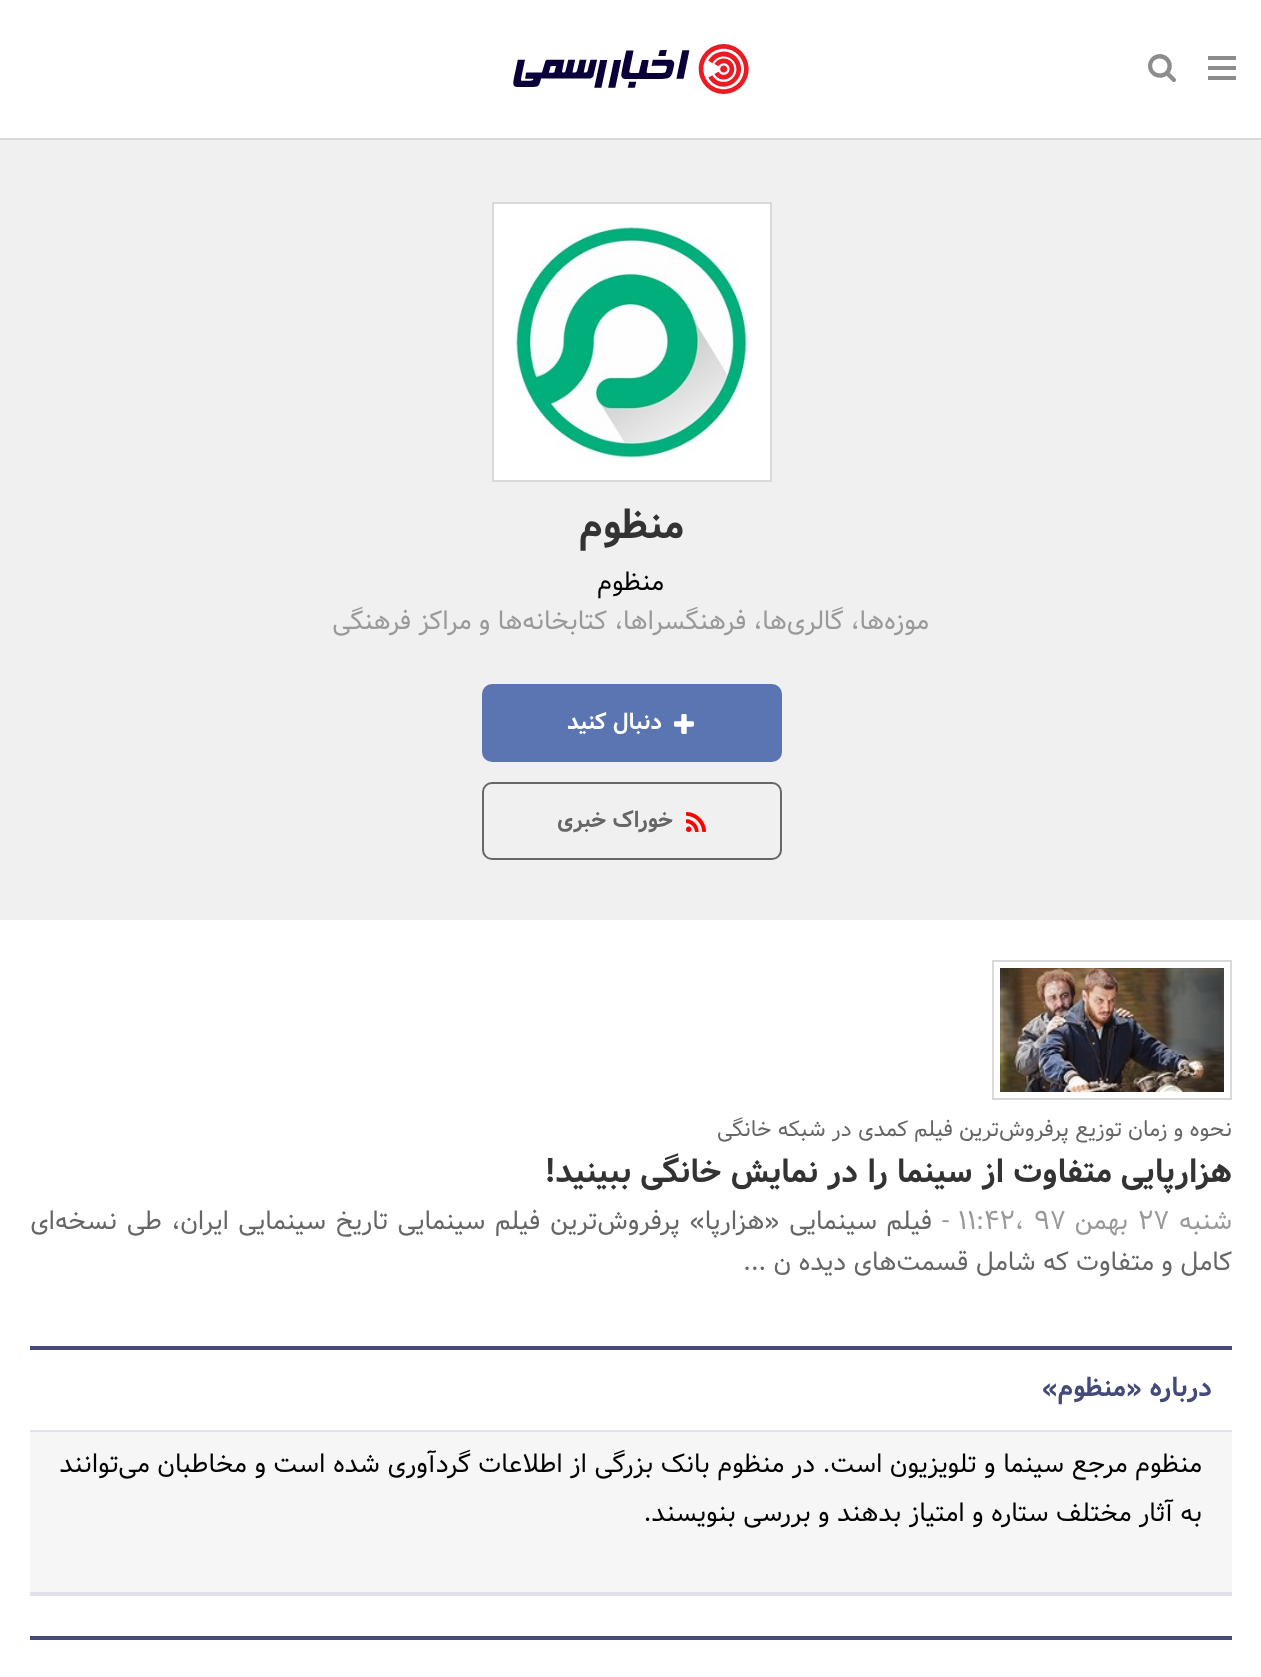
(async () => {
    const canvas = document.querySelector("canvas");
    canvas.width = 1261;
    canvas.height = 1677;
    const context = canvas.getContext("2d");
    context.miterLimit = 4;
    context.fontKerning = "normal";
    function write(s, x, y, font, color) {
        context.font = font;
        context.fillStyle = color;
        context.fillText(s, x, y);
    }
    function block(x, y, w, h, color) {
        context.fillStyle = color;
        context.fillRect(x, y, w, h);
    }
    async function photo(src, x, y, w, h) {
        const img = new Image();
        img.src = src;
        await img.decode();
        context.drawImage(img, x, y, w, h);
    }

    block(0, 0, 1261, 1677, "rgb(255, 255, 255)");
    block(0, 138, 1261, 2, "rgb(217, 217, 217)");
    block(1208, 66, 28, 4, "rgb(140, 140, 140)");
    block(1208, 56, 28, 4, "rgb(140, 140, 140)");
    block(1208, 76, 28, 4, "rgb(140, 140, 140)");
    await photo("media/1.png", 1148, 54, 28, 28);
    await photo("media/2.png", 513, 44, 236, 50);
    block(0, 140, 1261, 780, "rgb(240, 240, 240)");
    context.fillStyle = "rgb(255, 255, 255)";
    context.beginPath();
    context.rect(493, 203, 278, 278);
    context.fill();
    context.strokeStyle = "rgb(217, 217, 217)";
    context.lineWidth = 2;
    context.stroke();
    await photo("media/3.png", 500, 210, 264, 264);
    context.direction = "rtl";
    write("منظوم", 684, 538, "bold 40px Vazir", "rgb(51, 51, 51)");
    write("منظوم", 664, 590, "26px Vazir", "rgb(0, 0, 0)");
    write("موزه‌ها، گالری‌ها، فرهنگسراها، کتابخانه‌ها و مراکز فرهنگی", 929, 629, "26px Vazir", "rgb(153, 153, 153)");
    context.fillStyle = "rgb(90, 117, 177)";
    context.beginPath();
    context.roundRect(483, 685, 298, 76, 9);
    context.fill();
    context.strokeStyle = "rgb(90, 117, 177)";
    context.stroke();
    await photo("media/4.png", 674, 714, 20, 20);
    write("دنبال کنید", 662, 729, "bold 22px Vazir", "rgb(255, 255, 255)");
    context.beginPath();
    context.roundRect(483, 783, 298, 76, 9);
    context.strokeStyle = "rgb(102, 102, 102)";
    context.stroke();
    await photo("media/5.png", 686, 812, 20, 20);
    write("خوراک خبری", 673, 827, "bold 22px Vazir", "rgb(102, 102, 102)");
    block(992, 960, 240, 140, "rgb(217, 217, 217)");
    context.strokeStyle = "rgb(255, 255, 255)";
    context.lineWidth = 6;
    context.strokeRect(997, 965, 230, 130);
    await photo("media/6.png", 1000, 968, 224, 124);
    write("نحوه و زمان توزیع پرفروش‌ترین فیلم کمدی در شبکه خانگی", 1232, 1136, "22px Vazir", "rgb(102, 102, 102)");
    write("هزارپایی متفاوت از سینما را در نمایش خانگی ببینید!", 1232, 1182, "bold 32px Vazir", "rgb(51, 51, 51)");
    write("شنبه", 1232, 1229, "26px Vazir", "rgb(153, 153, 153)");
    context.direction = "ltr";
    write("27", 1138, 1229, "26px Vazir", "rgb(153, 153, 153)");
    context.direction = "rtl";
    write("بهمن", 1128, 1229, "26px Vazir", "rgb(153, 153, 153)");
    context.direction = "ltr";
    write("97", 1034, 1229, "26px Vazir", "rgb(153, 153, 153)");
    write("11:42،", 958, 1229, "26px Vazir", "rgb(153, 153, 153)");
    write("-", 942, 1229, "26px Vazir", "rgb(153, 153, 153)");
    context.wordSpacing = "2.25px";
    context.direction = "rtl";
    write("فیلم سینمایی «هزارپا» پرفروش‌ترین فیلم سینمایی تاریخ سینمایی ایران، طی نسخه‌ای", 932, 1229, "26px Vazir", "rgb(102, 102, 102)");
    context.wordSpacing = "0px";
    write("کامل و متفاوت که شامل قسمت‌های دیده ن ...", 1232, 1270, "26px Vazir", "rgb(102, 102, 102)");
    block(30, 1432, 1202, 160, "rgb(246, 246, 246)");
    block(30, 1592, 1202, 4, "rgb(224, 225, 233)");
    block(30, 1346, 1202, 4, "rgb(68, 75, 121)");
    block(30, 1430, 1202, 2, "rgb(224, 225, 233)");
    write("درباره «منظوم»", 1212, 1396, "bold 26px Vazir", "rgb(68, 75, 121)");
    context.wordSpacing = "0.2px";
    write("منظوم مرجع سینما و تلویزیون است. در منظوم بانک بزرگی از اطلاعات گردآوری شده است و مخاطبان می‌توانند", 1202, 1472, "26px Vazir", "rgb(0, 0, 0)");
    context.wordSpacing = "0px";
    write("به آثار مختلف ستاره و امتیاز بدهند و بررسی بنویسند.", 1202, 1521, "26px Vazir", "rgb(0, 0, 0)");
    block(30, 1636, 1202, 4, "rgb(68, 75, 121)");
})();
